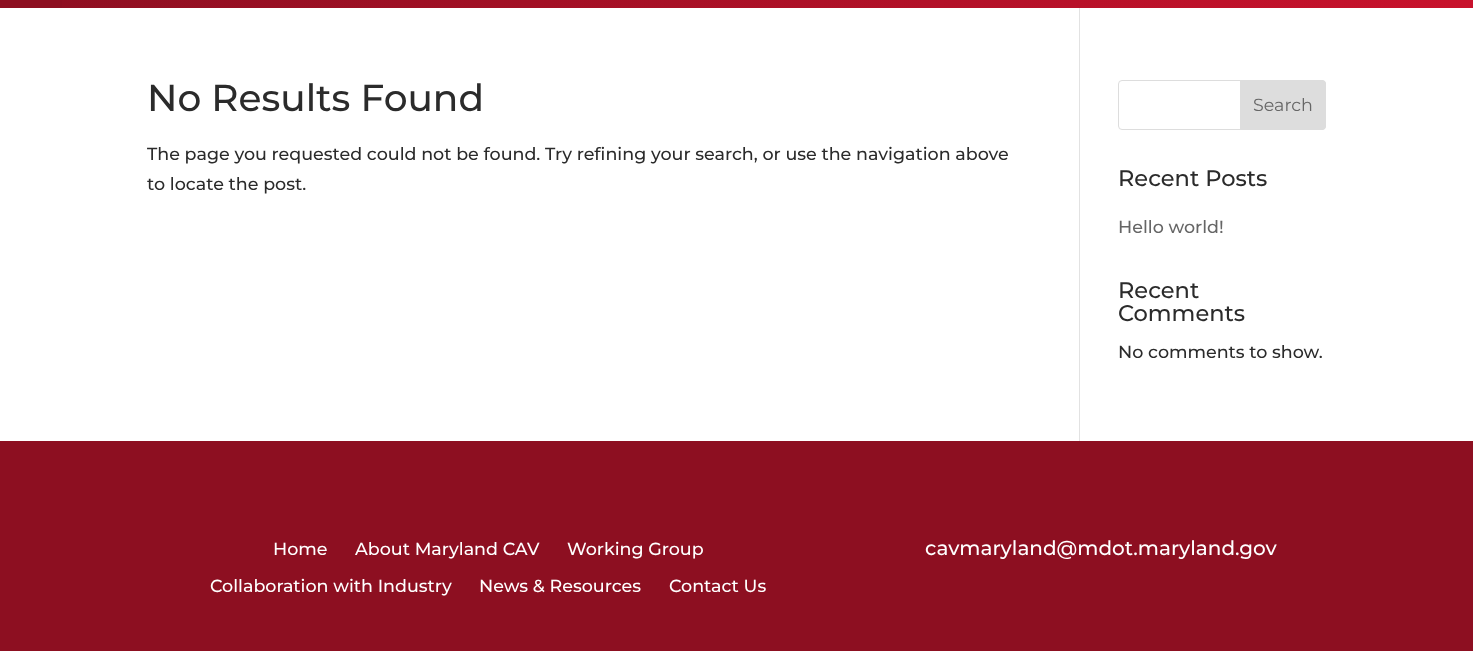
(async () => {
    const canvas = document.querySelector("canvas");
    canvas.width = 1473;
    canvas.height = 651;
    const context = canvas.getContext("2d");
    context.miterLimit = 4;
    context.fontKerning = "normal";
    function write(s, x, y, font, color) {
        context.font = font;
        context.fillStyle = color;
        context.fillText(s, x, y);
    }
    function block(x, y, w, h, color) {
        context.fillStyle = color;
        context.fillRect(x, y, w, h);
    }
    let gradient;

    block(0, 0, 1473, 651, "rgb(141, 15, 33)");
    gradient = context.createLinearGradient(0, -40, 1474, -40);
    gradient.addColorStop(0, "rgb(141, 15, 33)");
    gradient.addColorStop(1, "rgb(200, 18, 44)");
    context.fillStyle = gradient;
    context.fillRect(62, 0, 1411, 8);
    block(0, 8, 1473, 433, "rgb(255, 255, 255)");
    block(1079, 8, 1, 433, "rgb(226, 226, 226)");
    write("No Results Found", 147, 111, "100 37.5px Montserrat", "rgb(43, 43, 43)");
    write("The page you requested could not be found. Try refining your search, or use the navigation above", 147, 160, "100 17.5px Montserrat", "rgb(43, 43, 43)");
    write("to locate the post.", 147, 190, "100 17.5px Montserrat", "rgb(43, 43, 43)");
    context.beginPath();
    context.roundRect(1118.5, 80.5, 207, 49, 3.5);
    context.strokeStyle = "rgb(221, 221, 221)";
    context.stroke();
    context.fillStyle = "rgb(221, 221, 221)";
    context.beginPath();
    context.roundRect(1240.5, 80.5, 85, 49, [0, 3.5, 3.5, 0]);
    context.fill();
    context.stroke();
    write("Search", 1253, 111, "100 17.5px 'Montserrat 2'", "rgb(102, 102, 102)");
    write("Recent Posts", 1118, 186, "100 22.5px Montserrat", "rgb(43, 43, 43)");
    write("Hello world!", 1118, 233, "100 17.5px Montserrat", "rgb(102, 102, 102)");
    write("Recent", 1118, 298, "100 22.5px Montserrat", "rgb(43, 43, 43)");
    write("Comments", 1118, 321, "100 22.5px Montserrat", "rgb(43, 43, 43)");
    write("No comments to show.", 1118, 358, "100 17.5px Montserrat", "rgb(43, 43, 43)");
    write("Home", 273, 555, "100 17.5px Montserrat", "rgb(255, 255, 255)");
    write("About Maryland CAV", 355, 555, "100 17.5px Montserrat", "rgb(255, 255, 255)");
    write("Working Group", 567, 555, "100 17.5px Montserrat", "rgb(255, 255, 255)");
    write("Collaboration with Industry", 210, 592, "100 17.5px Montserrat", "rgb(255, 255, 255)");
    write("News & Resources", 479, 592, "100 17.5px Montserrat", "rgb(255, 255, 255)");
    write("Contact Us", 669, 592, "100 17.5px Montserrat", "rgb(255, 255, 255)");
    write("cavmaryland@mdot.maryland.gov", 925, 555, "100 20px Montserrat", "rgb(255, 255, 255)");
})();
